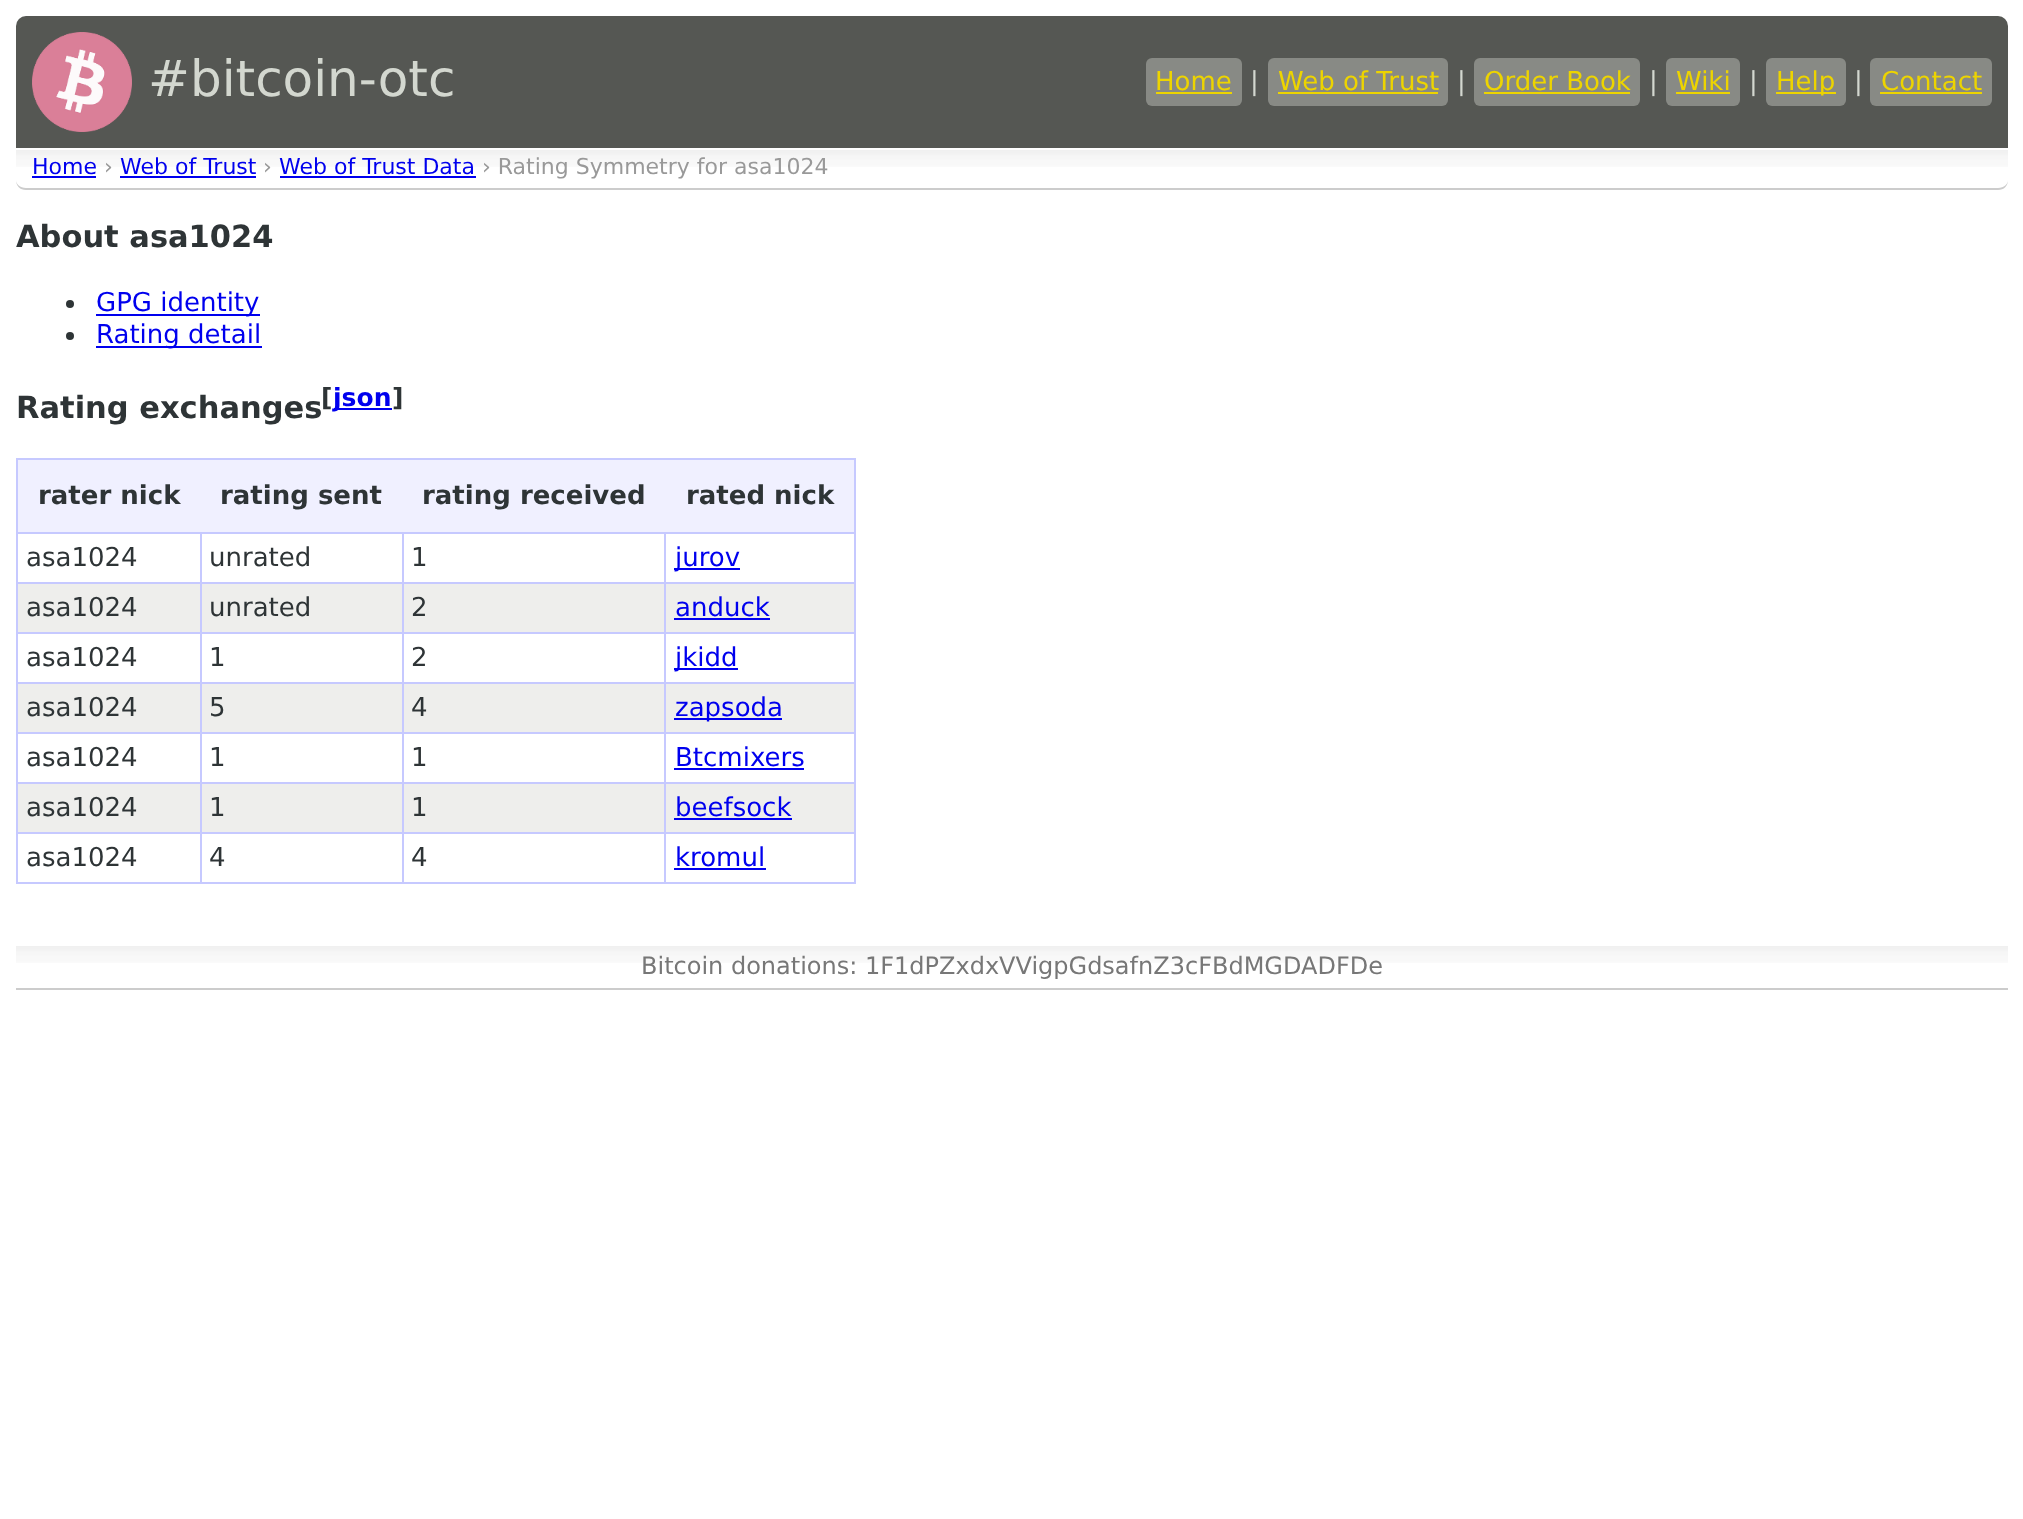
(async () => {
    const canvas = document.querySelector("canvas");
    canvas.width = 2023;
    canvas.height = 1519;
    const context = canvas.getContext("2d");
    context.miterLimit = 4;
    context.fontKerning = "normal";
    function write(s, x, y, font, color) {
        context.font = font;
        context.fillStyle = color;
        context.fillText(s, x, y);
    }
    function block(x, y, w, h, color) {
        context.fillStyle = color;
        context.fillRect(x, y, w, h);
    }
    function card(x, y, w, h, r, color) {
        context.fillStyle = color;
        context.beginPath();
        context.roundRect(x, y, w, h, r);
        context.fill();
    }
    async function photo(src, x, y, w, h) {
        const img = new Image();
        img.src = src;
        await img.decode();
        context.drawImage(img, x, y, w, h);
    }

    block(0, 0, 2023, 1519, "rgb(255, 255, 255)");
    context.fillStyle = "rgb(85, 87, 83)";
    context.beginPath();
    context.roundRect(16, 16, 1992, 132, [10, 10, 0, 0]);
    context.fill();
    await photo("media/1.png", 32, 32, 100, 100);
    write("#bitcoin-otc", 148, 96, "50px DejaVu Sans", "rgb(211, 215, 207)");
    card(1146, 58, 96, 48, 6, "rgb(136, 138, 133)");
    write("Home", 1155, 90, "26px DejaVu Sans", "rgb(237, 212, 0)");
    block(1156, 92, 76, 2, "rgb(237, 212, 0)");
    write("|", 1250, 90, "26px DejaVu Sans", "rgb(211, 215, 207)");
    card(1268, 58, 180, 48, 6, "rgb(136, 138, 133)");
    write("Web of Trust", 1278, 90, "26px DejaVu Sans", "rgb(237, 212, 0)");
    block(1278, 92, 160, 2, "rgb(237, 212, 0)");
    write("|", 1457, 90, "26px DejaVu Sans", "rgb(211, 215, 207)");
    card(1474, 58, 166, 48, 6, "rgb(136, 138, 133)");
    write("Order Book", 1484, 90, "26px DejaVu Sans", "rgb(237, 212, 0)");
    block(1484, 92, 146, 2, "rgb(237, 212, 0)");
    write("|", 1649, 90, "26px DejaVu Sans", "rgb(211, 215, 207)");
    card(1666, 58, 74, 48, 6, "rgb(136, 138, 133)");
    write("Wiki", 1676, 90, "26px DejaVu Sans", "rgb(237, 212, 0)");
    block(1676, 92, 54, 2, "rgb(237, 212, 0)");
    write("|", 1749, 90, "26px DejaVu Sans", "rgb(211, 215, 207)");
    card(1766, 58, 80, 48, 6, "rgb(136, 138, 133)");
    block(1776, 92, 60, 2, "rgb(237, 212, 0)");
    write("Help", 1776, 90, "26px DejaVu Sans", "rgb(237, 212, 0)");
    write("|", 1854, 90, "26px DejaVu Sans", "rgb(211, 215, 207)");
    card(1870, 58, 122, 48, 6, "rgb(136, 138, 133)");
    write("Contact", 1881, 90, "26px DejaVu Sans", "rgb(237, 212, 0)");
    block(1880, 92, 102, 2, "rgb(237, 212, 0)");
    await photo("media/2.png", 16, 150, 1992, 17);
    context.fillStyle = "rgb(204, 204, 204)";
    context.beginPath();
    context.moveTo(26, 190);
    context.lineTo(1998, 190);
    context.bezierCurveTo(2004, 190, 2008, 186, 2008, 180);
    context.bezierCurveTo(2008, 184, 2004, 188, 1998, 188);
    context.lineTo(26, 188);
    context.bezierCurveTo(20, 188, 16, 184, 16, 180);
    context.bezierCurveTo(16, 186, 20, 190, 26, 190);
    context.closePath();
    context.fill();
    write("Home", 32, 174, "22px DejaVu Sans", "rgb(0, 0, 238)");
    block(32, 176, 64, 2, "rgb(0, 0, 238)");
    write("›", 104, 174, "22px DejaVu Sans", "rgb(153, 153, 153)");
    write("Web of Trust", 120, 174, "22px DejaVu Sans", "rgb(0, 0, 238)");
    block(120, 176, 136, 2, "rgb(0, 0, 238)");
    write("›", 263, 174, "22px DejaVu Sans", "rgb(153, 153, 153)");
    write("Web of Trust Data", 279, 174, "22px DejaVu Sans", "rgb(0, 0, 238)");
    block(280, 176, 196, 2, "rgb(0, 0, 238)");
    write("› Rating Symmetry for asa1024", 482, 174, "22px DejaVu Sans", "rgb(153, 153, 153)");
    write("About asa1024", 16, 247, "bold 30.5px DejaVu Sans", "rgb(46, 52, 54)");
    context.beginPath();
    context.arc(70, 304, 4, 0, Math.PI * 2);
    context.fill();
    block(96, 314, 164, 2, "rgb(0, 0, 238)");
    write("GPG identity", 96, 311, "26px DejaVu Sans", "rgb(0, 0, 238)");
    context.fillStyle = "rgb(46, 52, 54)";
    context.beginPath();
    context.arc(70, 336, 4, 0, Math.PI * 2);
    context.fill();
    block(96, 346, 166, 2, "rgb(0, 0, 238)");
    write("Rating detail", 96, 343, "26px DejaVu Sans", "rgb(0, 0, 238)");
    write("Rating exchanges", 16, 418, "bold 30.5px DejaVu Sans", "rgb(46, 52, 54)");
    write("[", 321, 406, "bold 25px DejaVu Sans", "rgb(46, 52, 54)");
    block(334, 408, 58, 2, "rgb(0, 0, 238)");
    write("json", 333, 406, "bold 25px DejaVu Sans", "rgb(0, 0, 238)");
    write("]", 392, 406, "bold 25px DejaVu Sans", "rgb(46, 52, 54)");
    block(16, 458, 840, 2, "rgb(198, 201, 255)");
    block(854, 458, 2, 426, "rgb(198, 201, 255)");
    block(16, 882, 840, 2, "rgb(198, 201, 255)");
    block(16, 458, 2, 426, "rgb(198, 201, 255)");
    block(18, 460, 836, 72, "rgb(240, 240, 255)");
    write("rater nick", 38, 504, "bold 26px DejaVu Sans", "rgb(46, 52, 54)");
    write("rating sent", 220, 504, "bold 26px DejaVu Sans", "rgb(46, 52, 54)");
    write("rating received", 422, 504, "bold 26px DejaVu Sans", "rgb(46, 52, 54)");
    write("rated nick", 686, 504, "bold 26px DejaVu Sans", "rgb(46, 52, 54)");
    block(664, 532, 192, 2, "rgb(198, 201, 255)");
    block(664, 582, 192, 2, "rgb(198, 201, 255)");
    block(18, 584, 836, 48, "rgb(238, 238, 236)");
    block(664, 632, 192, 2, "rgb(198, 201, 255)");
    block(664, 682, 192, 2, "rgb(198, 201, 255)");
    block(18, 684, 836, 48, "rgb(238, 238, 236)");
    block(664, 732, 192, 2, "rgb(198, 201, 255)");
    block(664, 782, 192, 2, "rgb(198, 201, 255)");
    block(18, 784, 836, 48, "rgb(238, 238, 236)");
    block(664, 832, 192, 2, "rgb(198, 201, 255)");
    block(664, 832, 2, 52, "rgb(198, 201, 255)");
    block(402, 832, 264, 2, "rgb(198, 201, 255)");
    block(664, 782, 2, 52, "rgb(198, 201, 255)");
    block(402, 782, 264, 2, "rgb(198, 201, 255)");
    block(664, 732, 2, 52, "rgb(198, 201, 255)");
    block(402, 732, 264, 2, "rgb(198, 201, 255)");
    block(664, 682, 2, 52, "rgb(198, 201, 255)");
    block(402, 682, 264, 2, "rgb(198, 201, 255)");
    block(664, 632, 2, 52, "rgb(198, 201, 255)");
    block(402, 632, 264, 2, "rgb(198, 201, 255)");
    block(664, 582, 2, 52, "rgb(198, 201, 255)");
    block(402, 582, 264, 2, "rgb(198, 201, 255)");
    block(664, 532, 2, 52, "rgb(198, 201, 255)");
    block(402, 532, 264, 2, "rgb(198, 201, 255)");
    block(402, 832, 2, 52, "rgb(198, 201, 255)");
    block(200, 832, 204, 2, "rgb(198, 201, 255)");
    block(402, 782, 2, 52, "rgb(198, 201, 255)");
    block(200, 782, 204, 2, "rgb(198, 201, 255)");
    block(402, 732, 2, 52, "rgb(198, 201, 255)");
    block(200, 732, 204, 2, "rgb(198, 201, 255)");
    block(402, 682, 2, 52, "rgb(198, 201, 255)");
    block(200, 682, 204, 2, "rgb(198, 201, 255)");
    block(402, 632, 2, 52, "rgb(198, 201, 255)");
    block(200, 632, 204, 2, "rgb(198, 201, 255)");
    block(402, 582, 2, 52, "rgb(198, 201, 255)");
    block(200, 582, 204, 2, "rgb(198, 201, 255)");
    block(402, 532, 2, 52, "rgb(198, 201, 255)");
    block(200, 532, 204, 2, "rgb(198, 201, 255)");
    block(200, 832, 2, 52, "rgb(198, 201, 255)");
    block(16, 832, 186, 2, "rgb(198, 201, 255)");
    block(200, 782, 2, 52, "rgb(198, 201, 255)");
    block(16, 782, 186, 2, "rgb(198, 201, 255)");
    block(200, 732, 2, 52, "rgb(198, 201, 255)");
    block(16, 732, 186, 2, "rgb(198, 201, 255)");
    block(200, 682, 2, 52, "rgb(198, 201, 255)");
    block(16, 682, 186, 2, "rgb(198, 201, 255)");
    block(200, 632, 2, 52, "rgb(198, 201, 255)");
    block(16, 632, 186, 2, "rgb(198, 201, 255)");
    block(200, 582, 2, 52, "rgb(198, 201, 255)");
    block(16, 582, 186, 2, "rgb(198, 201, 255)");
    block(200, 532, 2, 52, "rgb(198, 201, 255)");
    block(16, 532, 186, 2, "rgb(198, 201, 255)");
    write("asa1024", 26, 566, "26px DejaVu Sans", "rgb(46, 52, 54)");
    write("unrated", 209, 566, "26px DejaVu Sans", "rgb(46, 52, 54)");
    write("1", 411, 566, "26px DejaVu Sans", "rgb(46, 52, 54)");
    block(674, 568, 66, 2, "rgb(0, 0, 238)");
    write("jurov", 675, 566, "26px DejaVu Sans", "rgb(0, 0, 238)");
    write("asa1024", 26, 616, "26px DejaVu Sans", "rgb(46, 52, 54)");
    write("unrated", 209, 616, "26px DejaVu Sans", "rgb(46, 52, 54)");
    write("2", 411, 616, "26px DejaVu Sans", "rgb(46, 52, 54)");
    write("anduck", 675, 616, "26px DejaVu Sans", "rgb(0, 0, 238)");
    block(674, 618, 96, 2, "rgb(0, 0, 238)");
    write("asa1024", 26, 666, "26px DejaVu Sans", "rgb(46, 52, 54)");
    write("1", 209, 666, "26px DejaVu Sans", "rgb(46, 52, 54)");
    write("2", 411, 666, "26px DejaVu Sans", "rgb(46, 52, 54)");
    block(674, 668, 64, 2, "rgb(0, 0, 238)");
    write("jkidd", 675, 666, "26px DejaVu Sans", "rgb(0, 0, 238)");
    write("asa1024", 26, 716, "26px DejaVu Sans", "rgb(46, 52, 54)");
    write("5", 209, 716, "26px DejaVu Sans", "rgb(46, 52, 54)");
    write("4", 411, 716, "26px DejaVu Sans", "rgb(46, 52, 54)");
    block(674, 718, 108, 2, "rgb(0, 0, 238)");
    write("zapsoda", 675, 716, "26px DejaVu Sans", "rgb(0, 0, 238)");
    write("asa1024", 26, 766, "26px DejaVu Sans", "rgb(46, 52, 54)");
    write("1", 209, 766, "26px DejaVu Sans", "rgb(46, 52, 54)");
    write("1", 411, 766, "26px DejaVu Sans", "rgb(46, 52, 54)");
    write("Btcmixers", 675, 766, "26px DejaVu Sans", "rgb(0, 0, 238)");
    block(674, 768, 130, 2, "rgb(0, 0, 238)");
    write("asa1024", 26, 816, "26px DejaVu Sans", "rgb(46, 52, 54)");
    write("1", 209, 816, "26px DejaVu Sans", "rgb(46, 52, 54)");
    write("1", 411, 816, "26px DejaVu Sans", "rgb(46, 52, 54)");
    write("beefsock", 675, 816, "26px DejaVu Sans", "rgb(0, 0, 238)");
    block(674, 818, 118, 2, "rgb(0, 0, 238)");
    write("asa1024", 26, 866, "26px DejaVu Sans", "rgb(46, 52, 54)");
    write("4", 209, 866, "26px DejaVu Sans", "rgb(46, 52, 54)");
    write("4", 411, 866, "26px DejaVu Sans", "rgb(46, 52, 54)");
    write("kromul", 675, 866, "26px DejaVu Sans", "rgb(0, 0, 238)");
    block(674, 868, 92, 2, "rgb(0, 0, 238)");
    await photo("media/2.png", 16, 946, 1992, 17);
    block(16, 988, 1992, 2, "rgb(204, 204, 204)");
    write("Bitcoin donations: 1F1dPZxdxVVigpGdsafnZ3cFBdMGDADFDe", 641, 974, "24px DejaVu Sans", "rgb(119, 119, 119)");
})();
